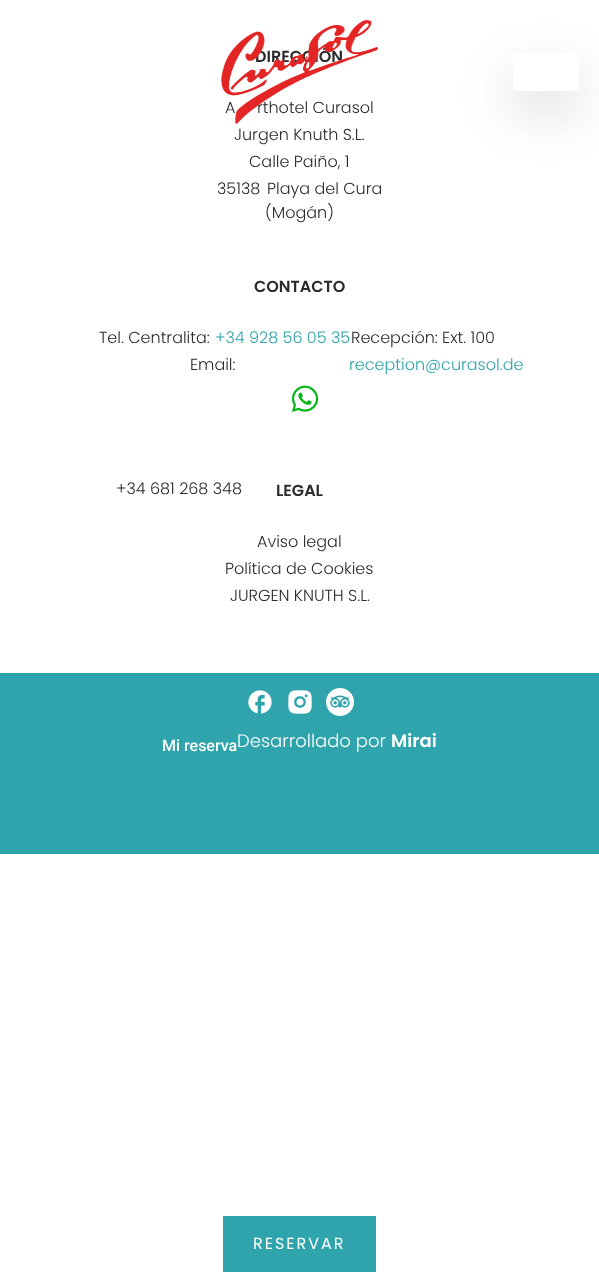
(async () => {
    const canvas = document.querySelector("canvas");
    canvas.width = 599;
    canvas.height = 1282;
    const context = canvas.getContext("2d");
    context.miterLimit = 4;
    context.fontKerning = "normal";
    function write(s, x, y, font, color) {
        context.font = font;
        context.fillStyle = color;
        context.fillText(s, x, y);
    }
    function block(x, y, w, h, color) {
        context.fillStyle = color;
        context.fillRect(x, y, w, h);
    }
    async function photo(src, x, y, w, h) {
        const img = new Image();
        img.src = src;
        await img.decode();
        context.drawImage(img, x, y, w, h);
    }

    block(0, 0, 599, 1282, "rgb(255, 255, 255)");
    write("DIRECCIÓN", 255, 62, "600 16px Poppins", "rgb(43, 43, 43)");
    write("A", 225, 113, "300 16px Poppins", "rgb(43, 43, 43)");
    write("rthotel Curasol", 257, 113, "300 16px Poppins", "rgb(43, 43, 43)");
    write("Jurgen Knuth S.L.", 234, 140, "300 16px Poppins", "rgb(43, 43, 43)");
    write("Calle Paiño, 1", 249, 167, "300 16px Poppins", "rgb(43, 43, 43)");
    write("35138", 217, 194, "300 16px Poppins", "rgb(43, 43, 43)");
    write("Playa del Cura", 267, 194, "300 16px Poppins", "rgb(43, 43, 43)");
    write("(Mogán)", 265, 218, "300 16px Poppins", "rgb(43, 43, 43)");
    write("CONTACTO", 254, 292, "600 16px Poppins", "rgb(43, 43, 43)");
    write("Tel. Centralita:", 99, 343, "300 16px Poppins", "rgb(43, 43, 43)");
    write("+34 928 56 05 35", 215, 343, "300 16px Poppins", "rgb(47, 164, 172)");
    write("Recepción: Ext. 100", 351, 343, "300 16px Poppins", "rgb(43, 43, 43)");
    write("Email:", 190, 370, "300 16px Poppins", "rgb(43, 43, 43)");
    write("reception@curasol.de", 349, 370, "300 16px Poppins", "rgb(47, 164, 172)");
    await photo("media/1.png", 291, 385, 28, 27);
    write("+34 681 268 348", 116, 494, "300 16px Poppins", "rgb(43, 43, 43)");
    write("LEGAL", 276, 496, "600 16px Poppins", "rgb(43, 43, 43)");
    write("Aviso legal", 257, 547, "300 16px Poppins", "rgb(43, 43, 43)");
    write("Política de Cookies", 225, 574, "300 16px Poppins", "rgb(43, 43, 43)");
    write("JURGEN KNUTH S.L.", 230, 601, "300 16px Poppins", "rgb(43, 43, 43)");
    block(0, 673, 599, 181, "rgb(47, 164, 172)");
    await photo("media/2.png", 248, 690, 24, 24);
    await photo("media/3.png", 288, 690, 24, 24);
    await photo("media/4.png", 326, 688, 28, 28);
    write("Mi reserva", 162, 751, "500 16px Roboto", "rgb(255, 255, 255)");
    write("Desarrollado por", 237, 747, "300 18px Poppins", "rgb(255, 255, 255)");
    write("Mirai", 391, 747, "600 18px Poppins", "rgb(255, 255, 255)");
    await photo("media/5.png", 221, 20, 157, 104);
    context.save();
    context.beginPath();
    context.moveTo(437, 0);
    context.lineTo(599, 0);
    context.lineTo(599, 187);
    context.lineTo(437, 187);
    context.closePath();
    context.moveTo(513, 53);
    context.lineTo(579, 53);
    context.lineTo(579, 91);
    context.lineTo(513, 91);
    context.closePath();
    context.clip("evenodd");
    context.fillStyle = "rgba(77, 77, 83, 0.2)";
    context.filter = "blur(25px)";
    context.beginPath();
    context.rect(513, 73, 66, 38);
    context.fill();
    context.filter = "none";
    context.restore();
    block(223, 1216, 153, 56, "rgb(47, 164, 172)");
    context.letterSpacing = "2px";
    write("RESERVAR", 253, 1249, "16px Poppins", "rgb(255, 255, 255)");
})();
